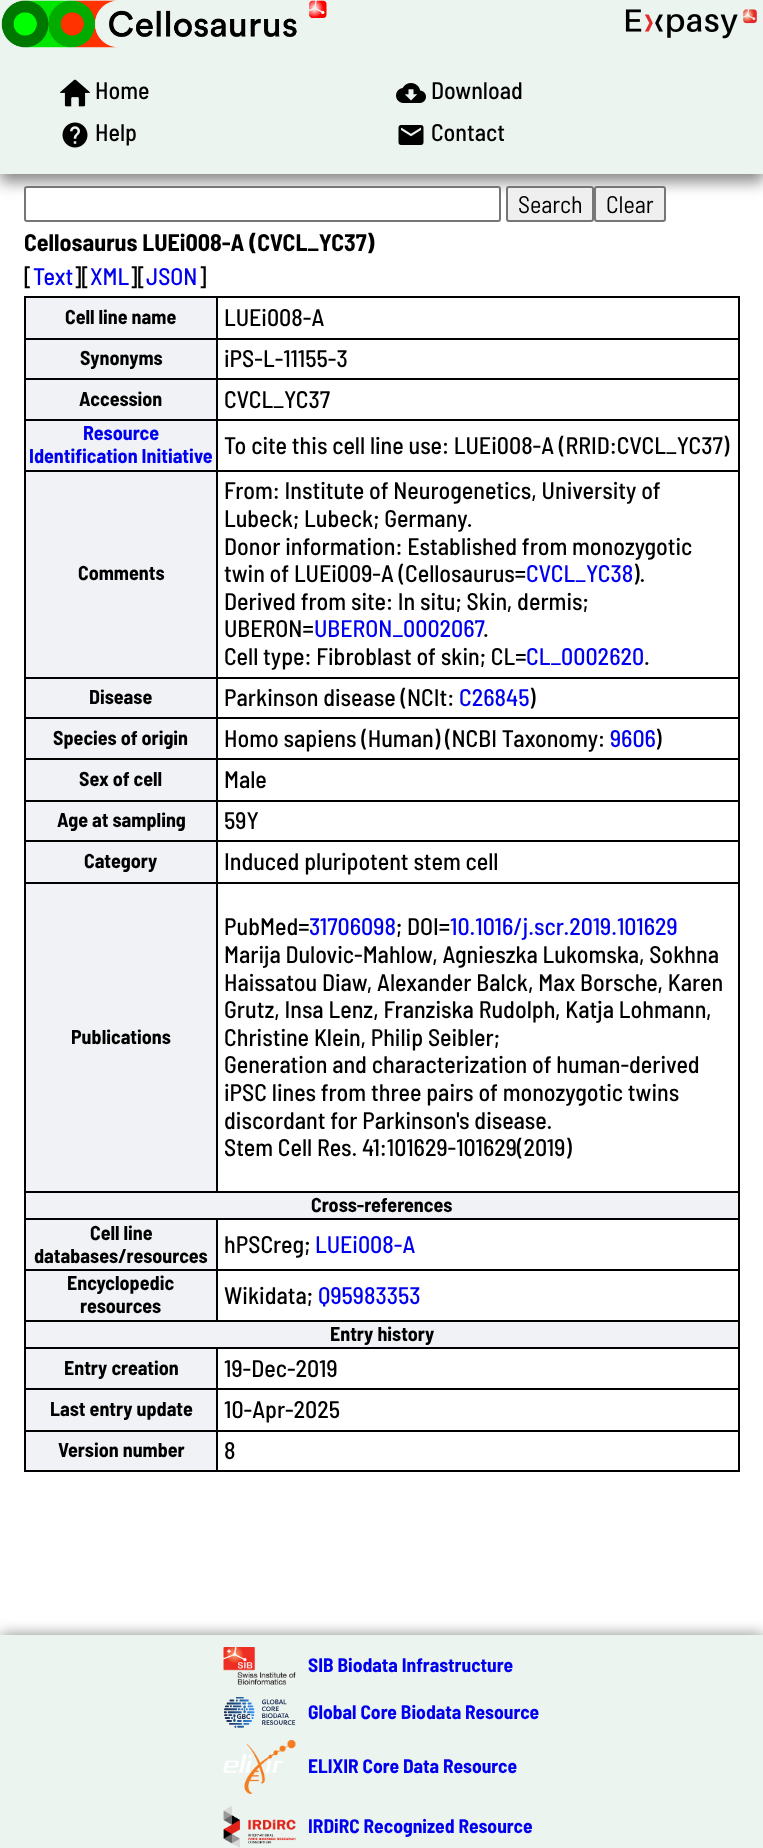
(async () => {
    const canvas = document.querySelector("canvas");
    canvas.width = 763;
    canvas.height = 1848;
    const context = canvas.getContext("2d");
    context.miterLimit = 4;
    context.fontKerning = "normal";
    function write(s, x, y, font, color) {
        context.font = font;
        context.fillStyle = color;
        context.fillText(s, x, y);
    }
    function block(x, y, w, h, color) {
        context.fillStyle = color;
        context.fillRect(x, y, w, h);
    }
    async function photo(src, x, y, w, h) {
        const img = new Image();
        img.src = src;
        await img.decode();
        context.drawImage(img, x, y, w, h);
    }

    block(0, 0, 763, 1848, "rgb(255, 255, 255)");
    context.fillStyle = "rgb(136, 136, 136)";
    context.filter = "blur(7.5px)";
    context.beginPath();
    context.rect(0, 8, 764, 174);
    context.fill();
    context.filter = "none";
    block(0, 0, 763, 174, "rgb(236, 244, 240)");
    await photo("media/1.png", 1, 0, 326, 48);
    await photo("media/2.png", 625, 9, 132, 30);
    await photo("media/3.png", 60, 79, 30, 28);
    write("Home", 95, 99, "500 24px Barlow Semi Condensed", "rgb(0, 0, 0)");
    await photo("media/4.png", 396, 83, 30, 20);
    write("Download", 431, 99, "500 24px Barlow Semi Condensed", "rgb(0, 0, 0)");
    await photo("media/5.png", 62, 122, 26, 26);
    write("Help", 95, 141, "500 24px Barlow Semi Condensed", "rgb(0, 0, 0)");
    await photo("media/6.png", 398, 125, 26, 20);
    write("Contact", 431, 141, "500 24px Barlow Semi Condensed", "rgb(0, 0, 0)");
    context.fillStyle = "rgb(255, 255, 255)";
    context.beginPath();
    context.roundRect(25, 187, 475, 34, 2);
    context.fill();
    context.strokeStyle = "rgb(118, 118, 118)";
    context.lineWidth = 2;
    context.stroke();
    context.fillStyle = "rgb(239, 239, 239)";
    context.beginPath();
    context.roundRect(507, 187, 86, 34, 2);
    context.fill();
    context.stroke();
    write("Search", 518, 213, "24px Barlow Semi Condensed", "rgb(0, 0, 0)");
    context.fillStyle = "rgb(239, 239, 239)";
    context.beginPath();
    context.roundRect(595, 187, 70, 34, 2);
    context.fill();
    context.stroke();
    write("Clear", 606, 213, "24px Barlow Semi Condensed", "rgb(0, 0, 0)");
    write("Cellosaurus LUEi008-A (CVCL_YC37)", 24, 251, "bold 24px Barlow Semi Condensed", "rgb(0, 0, 0)");
    write("[", 24, 285, "500 24px Barlow Semi Condensed", "rgb(0, 0, 0)");
    write("Text", 33, 285, "500 24px Barlow Semi Condensed", "rgb(0, 0, 238)");
    write("][", 73, 285, "500 24px Barlow Semi Condensed", "rgb(0, 0, 0)");
    write("XML", 90, 285, "500 24px Barlow Semi Condensed", "rgb(0, 0, 238)");
    write("][", 129, 285, "500 24px Barlow Semi Condensed", "rgb(0, 0, 0)");
    write("JSON", 146, 285, "500 24px Barlow Semi Condensed", "rgb(0, 0, 238)");
    write("]", 198, 285, "500 24px Barlow Semi Condensed", "rgb(0, 0, 0)");
    block(24, 296, 716, 2, "rgb(0, 0, 0)");
    block(738, 296, 2, 1176, "rgb(0, 0, 0)");
    block(24, 1470, 716, 2, "rgb(0, 0, 0)");
    block(24, 296, 2, 1176, "rgb(0, 0, 0)");
    block(26, 298, 190, 40, "rgb(240, 242, 245)");
    write("Cell line name", 65, 324, "bold 20px Barlow Semi Condensed", "rgb(0, 0, 0)");
    write("LUEi008-A", 224, 326, "500 24px Barlow Semi Condensed", "rgb(0, 0, 0)");
    block(24, 338, 716, 2, "rgb(0, 0, 0)");
    block(26, 340, 190, 38, "rgb(240, 242, 245)");
    write("Synonyms", 80, 365, "bold 20px Barlow Semi Condensed", "rgb(0, 0, 0)");
    write("iPS-L-11155-3", 224, 367, "500 24px Barlow Semi Condensed", "rgb(0, 0, 0)");
    block(24, 378, 716, 2, "rgb(0, 0, 0)");
    block(26, 380, 190, 39, "rgb(240, 242, 245)");
    write("Accession", 79, 406, "bold 20px Barlow Semi Condensed", "rgb(0, 0, 0)");
    write("CVCL_YC37", 224, 408, "500 24px Barlow Semi Condensed", "rgb(0, 0, 0)");
    block(24, 419, 716, 2, "rgb(0, 0, 0)");
    block(26, 421, 190, 49, "rgb(240, 242, 245)");
    write("Resource", 83, 440, "bold 20px Barlow Semi Condensed", "rgb(0, 0, 238)");
    write("Identification Initiative", 29, 463, "bold 20px Barlow Semi Condensed", "rgb(0, 0, 238)");
    write("To cite this cell line use: LUEi008-A (RRID:CVCL_YC37)", 224, 454, "500 24px Barlow Semi Condensed", "rgb(0, 0, 0)");
    block(24, 470, 716, 2, "rgb(0, 0, 0)");
    block(26, 472, 190, 205, "rgb(240, 242, 245)");
    write("Comments", 78, 580, "bold 20px Barlow Semi Condensed", "rgb(0, 0, 0)");
    write("From: Institute of Neurogenetics, University of", 224, 499, "500 24px Barlow Semi Condensed", "rgb(0, 0, 0)");
    write("Lubeck; Lubeck; Germany.", 224, 527, "500 24px Barlow Semi Condensed", "rgb(0, 0, 0)");
    write("Donor information: Established from monozygotic", 224, 555, "500 24px Barlow Semi Condensed", "rgb(0, 0, 0)");
    write("twin of LUEi009-A (Cellosaurus=", 224, 582, "500 24px Barlow Semi Condensed", "rgb(0, 0, 0)");
    write("CVCL_YC38", 526, 582, "500 24px Barlow Semi Condensed", "rgb(0, 0, 238)");
    write(").", 633, 582, "500 24px Barlow Semi Condensed", "rgb(0, 0, 0)");
    write("Derived from site: In situ; Skin, dermis;", 224, 610, "500 24px Barlow Semi Condensed", "rgb(0, 0, 0)");
    write("UBERON=", 224, 637, "500 24px Barlow Semi Condensed", "rgb(0, 0, 0)");
    write("UBERON_0002067", 314, 637, "500 24px Barlow Semi Condensed", "rgb(0, 0, 238)");
    write(".", 483, 637, "500 24px Barlow Semi Condensed", "rgb(0, 0, 0)");
    write("Cell type: Fibroblast of skin; CL=", 224, 665, "500 24px Barlow Semi Condensed", "rgb(0, 0, 0)");
    write("CL_0002620", 526, 665, "500 24px Barlow Semi Condensed", "rgb(0, 0, 238)");
    write(".", 644, 665, "500 24px Barlow Semi Condensed", "rgb(0, 0, 0)");
    block(24, 677, 716, 2, "rgb(0, 0, 0)");
    block(26, 679, 190, 38, "rgb(240, 242, 245)");
    write("Disease", 89, 704, "bold 20px Barlow Semi Condensed", "rgb(0, 0, 0)");
    write("Parkinson disease (NCIt:", 224, 706, "500 24px Barlow Semi Condensed", "rgb(0, 0, 0)");
    write("C26845", 459, 706, "500 24px Barlow Semi Condensed", "rgb(0, 0, 238)");
    write(")", 529, 706, "500 24px Barlow Semi Condensed", "rgb(0, 0, 0)");
    block(24, 717, 716, 2, "rgb(0, 0, 0)");
    block(26, 719, 190, 39, "rgb(240, 242, 245)");
    write("Species of origin", 53, 745, "bold 20px Barlow Semi Condensed", "rgb(0, 0, 0)");
    write("Homo sapiens (Human) (NCBI Taxonomy:", 224, 747, "500 24px Barlow Semi Condensed", "rgb(0, 0, 0)");
    write("9606", 610, 747, "500 24px Barlow Semi Condensed", "rgb(0, 0, 238)");
    write(")", 655, 747, "500 24px Barlow Semi Condensed", "rgb(0, 0, 0)");
    block(24, 758, 716, 2, "rgb(0, 0, 0)");
    block(26, 760, 190, 40, "rgb(240, 242, 245)");
    write("Sex of cell", 79, 786, "bold 20px Barlow Semi Condensed", "rgb(0, 0, 0)");
    write("Male", 224, 788, "500 24px Barlow Semi Condensed", "rgb(0, 0, 0)");
    block(24, 800, 716, 2, "rgb(0, 0, 0)");
    block(26, 802, 190, 38, "rgb(240, 242, 245)");
    write("Age at sampling", 57, 827, "bold 20px Barlow Semi Condensed", "rgb(0, 0, 0)");
    write("59Y", 224, 829, "500 24px Barlow Semi Condensed", "rgb(0, 0, 0)");
    block(24, 840, 716, 2, "rgb(0, 0, 0)");
    block(26, 842, 190, 40, "rgb(240, 242, 245)");
    write("Category", 84, 868, "bold 20px Barlow Semi Condensed", "rgb(0, 0, 0)");
    write("Induced pluripotent stem cell", 224, 870, "500 24px Barlow Semi Condensed", "rgb(0, 0, 0)");
    block(24, 882, 716, 2, "rgb(0, 0, 0)");
    block(26, 884, 190, 307, "rgb(240, 242, 245)");
    write("Publications", 71, 1044, "bold 20px Barlow Semi Condensed", "rgb(0, 0, 0)");
    block(24, 1191, 716, 2, "rgb(0, 0, 0)");
    block(216, 296, 2, 897, "rgb(0, 0, 0)");
    write("PubMed=", 224, 935, "500 24px Barlow Semi Condensed", "rgb(0, 0, 0)");
    write("31706098", 309, 935, "500 24px Barlow Semi Condensed", "rgb(0, 0, 238)");
    write("; DOI=", 396, 935, "500 24px Barlow Semi Condensed", "rgb(0, 0, 0)");
    write("10.1016/j.scr.2019.101629", 450, 935, "500 24px Barlow Semi Condensed", "rgb(0, 0, 238)");
    write("Marija Dulovic-Mahlow, Agnieszka Lukomska, Sokhna", 224, 963, "500 24px Barlow Semi Condensed", "rgb(0, 0, 0)");
    write("Haissatou Diaw, Alexander Balck, Max Borsche, Karen", 224, 991, "500 24px Barlow Semi Condensed", "rgb(0, 0, 0)");
    write("Grutz, Insa Lenz, Franziska Rudolph, Katja Lohmann,", 224, 1018, "500 24px Barlow Semi Condensed", "rgb(0, 0, 0)");
    write("Christine Klein, Philip Seibler;", 224, 1046, "500 24px Barlow Semi Condensed", "rgb(0, 0, 0)");
    write("Generation and characterization of human-derived", 224, 1073, "500 24px Barlow Semi Condensed", "rgb(0, 0, 0)");
    write("iPSC lines from three pairs of monozygotic twins", 224, 1101, "500 24px Barlow Semi Condensed", "rgb(0, 0, 0)");
    write("discordant for Parkinson's disease.", 224, 1129, "500 24px Barlow Semi Condensed", "rgb(0, 0, 0)");
    write("Stem Cell Res. 41:101629-101629(2019)", 224, 1156, "500 24px Barlow Semi Condensed", "rgb(0, 0, 0)");
    block(26, 1193, 712, 25, "rgb(240, 242, 245)");
    write("Cross-references", 311, 1212, "bold 20px Barlow Semi Condensed", "rgb(0, 0, 0)");
    block(24, 1218, 716, 2, "rgb(0, 0, 0)");
    block(26, 1220, 190, 49, "rgb(240, 242, 245)");
    write("Cell line", 90, 1240, "bold 20px Barlow Semi Condensed", "rgb(0, 0, 0)");
    write("databases/resources", 34, 1263, "bold 20px Barlow Semi Condensed", "rgb(0, 0, 0)");
    write("hPSCreg;", 224, 1253, "500 24px Barlow Semi Condensed", "rgb(0, 0, 0)");
    write("LUEi008-A", 315, 1253, "500 24px Barlow Semi Condensed", "rgb(0, 0, 238)");
    block(24, 1269, 716, 2, "rgb(0, 0, 0)");
    block(26, 1271, 190, 49, "rgb(240, 242, 245)");
    write("Encyclopedic", 67, 1290, "bold 20px Barlow Semi Condensed", "rgb(0, 0, 0)");
    write("resources", 80, 1313, "bold 20px Barlow Semi Condensed", "rgb(0, 0, 0)");
    block(24, 1320, 716, 2, "rgb(0, 0, 0)");
    block(216, 1218, 2, 104, "rgb(0, 0, 0)");
    write("Wikidata;", 224, 1304, "500 24px Barlow Semi Condensed", "rgb(0, 0, 0)");
    write("Q95983353", 318, 1304, "500 24px Barlow Semi Condensed", "rgb(0, 0, 238)");
    block(26, 1322, 712, 25, "rgb(240, 242, 245)");
    write("Entry history", 330, 1341, "bold 20px Barlow Semi Condensed", "rgb(0, 0, 0)");
    block(24, 1347, 716, 2, "rgb(0, 0, 0)");
    block(26, 1349, 190, 39, "rgb(240, 242, 245)");
    write("Entry creation", 64, 1375, "bold 20px Barlow Semi Condensed", "rgb(0, 0, 0)");
    write("19-Dec-2019", 224, 1377, "500 24px Barlow Semi Condensed", "rgb(0, 0, 0)");
    block(24, 1388, 716, 2, "rgb(0, 0, 0)");
    block(26, 1390, 190, 40, "rgb(240, 242, 245)");
    write("Last entry update", 50, 1416, "bold 20px Barlow Semi Condensed", "rgb(0, 0, 0)");
    write("10-Apr-2025", 224, 1418, "500 24px Barlow Semi Condensed", "rgb(0, 0, 0)");
    block(24, 1430, 716, 2, "rgb(0, 0, 0)");
    block(26, 1432, 190, 38, "rgb(240, 242, 245)");
    write("Version number", 58, 1457, "bold 20px Barlow Semi Condensed", "rgb(0, 0, 0)");
    block(216, 1347, 2, 125, "rgb(0, 0, 0)");
    write("8", 224, 1459, "500 24px Barlow Semi Condensed", "rgb(0, 0, 0)");
    context.fillStyle = "rgb(136, 136, 136)";
    context.filter = "blur(7.5px)";
    context.beginPath();
    context.rect(0, 1635, 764, 213);
    context.fill();
    context.filter = "none";
    block(0, 1635, 763, 213, "rgb(236, 244, 240)");
    await photo("media/7.png", 223, 1647, 73, 38);
    write("SIB Biodata Infrastructure", 308, 1672, "bold 19.5px Barlow Semi Condensed", "rgb(0, 0, 238)");
    await photo("media/8.png", 224, 1697, 72, 31);
    write("Global Core Biodata Resource", 308, 1719, "bold 19.5px Barlow Semi Condensed", "rgb(0, 0, 238)");
    await photo("media/9.png", 223, 1740, 73, 54);
    write("ELIXIR Core Data Resource", 308, 1773, "bold 19.5px Barlow Semi Condensed", "rgb(0, 0, 238)");
    await photo("media/10.png", 223, 1806, 73, 42);
    write("IRDiRC Recognized Resource", 308, 1833, "bold 19.5px Barlow Semi Condensed", "rgb(0, 0, 238)");
})();
